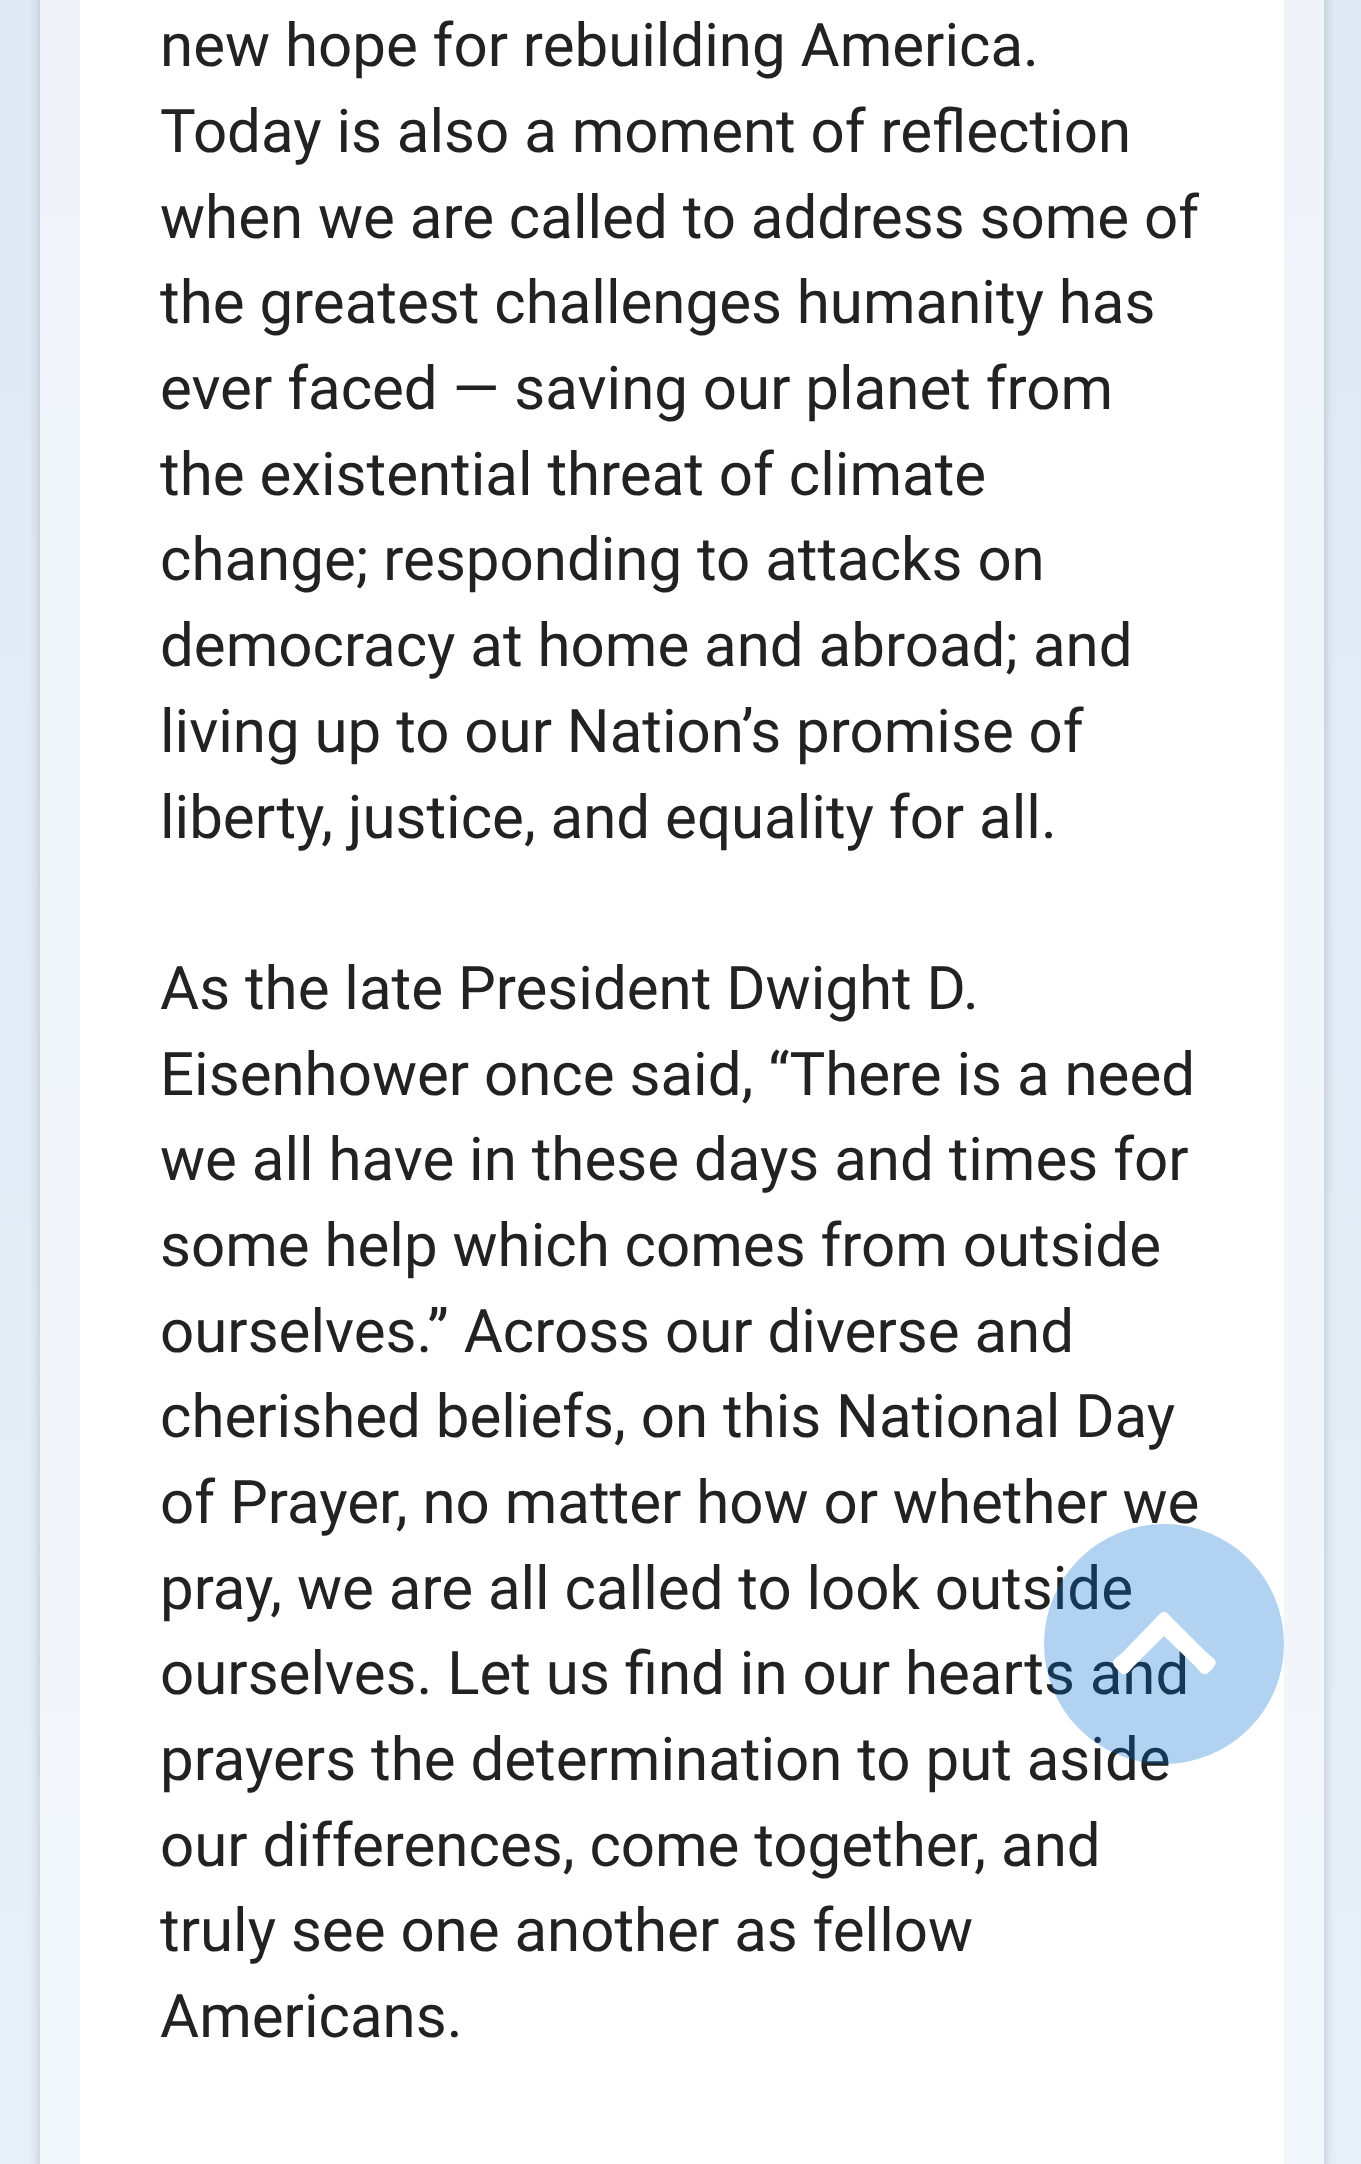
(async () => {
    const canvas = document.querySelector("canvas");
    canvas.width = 1361;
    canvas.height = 2164;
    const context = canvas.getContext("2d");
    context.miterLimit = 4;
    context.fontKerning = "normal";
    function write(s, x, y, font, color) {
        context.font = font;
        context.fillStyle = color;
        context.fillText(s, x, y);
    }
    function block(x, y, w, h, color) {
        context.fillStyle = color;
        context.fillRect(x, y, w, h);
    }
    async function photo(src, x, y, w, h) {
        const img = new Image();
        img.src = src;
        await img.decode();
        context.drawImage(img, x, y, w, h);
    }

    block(0, 0, 1361, 2164, "rgb(255, 255, 255)");
    await photo("media/1.png", 0, 0, 1361, 2164);
    context.save();
    context.beginPath();
    context.moveTo(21, 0);
    context.lineTo(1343, 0);
    context.lineTo(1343, 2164);
    context.lineTo(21, 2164);
    context.closePath();
    context.moveTo(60, -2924);
    context.lineTo(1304, -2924);
    context.bezierCurveTo(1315, -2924, 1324, -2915, 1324, -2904);
    context.lineTo(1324, 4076);
    context.bezierCurveTo(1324, 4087, 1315, 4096, 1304, 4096);
    context.lineTo(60, 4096);
    context.bezierCurveTo(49, 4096, 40, 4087, 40, 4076);
    context.lineTo(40, -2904);
    context.bezierCurveTo(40, -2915, 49, -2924, 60, -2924);
    context.closePath();
    context.clip("evenodd");
    context.fillStyle = "rgba(0, 0, 0, 0.2)";
    context.filter = "blur(6px)";
    context.beginPath();
    context.roundRect(40, -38, 1284, 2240, 20);
    context.fill();
    context.filter = "none";
    context.restore();
    block(80, 0, 1204, 2164, "rgb(255, 255, 255)");
    write("new hope for rebuilding America.", 160, 66, "60px Roboto", "rgb(34, 34, 34)");
    write("Today is also a moment of reflection", 160, 152, "60px Roboto", "rgb(34, 34, 34)");
    write("when we are called to address some of", 160, 238, "60px Roboto", "rgb(34, 34, 34)");
    write("the greatest challenges humanity has", 160, 323, "60px Roboto", "rgb(34, 34, 34)");
    write("ever faced — saving our planet from", 160, 409, "60px Roboto", "rgb(34, 34, 34)");
    write("the existential threat of climate", 160, 495, "60px Roboto", "rgb(34, 34, 34)");
    write("change; responding to attacks on", 160, 580, "60px Roboto", "rgb(34, 34, 34)");
    write("democracy at home and abroad; and", 160, 666, "60px Roboto", "rgb(34, 34, 34)");
    write("living up to our Nation’s promise of", 160, 752, "60px Roboto", "rgb(34, 34, 34)");
    write("liberty, justice, and equality for all.", 160, 838, "60px Roboto", "rgb(34, 34, 34)");
    write("As the late President Dwight D.", 160, 1009, "60px Roboto", "rgb(34, 34, 34)");
    write("Eisenhower once said, “There is a need", 160, 1095, "60px Roboto", "rgb(34, 34, 34)");
    write("we all have in these days and times for", 160, 1180, "60px Roboto", "rgb(34, 34, 34)");
    write("some help which comes from outside", 160, 1266, "60px Roboto", "rgb(34, 34, 34)");
    write("ourselves.” Across our diverse and", 160, 1352, "60px Roboto", "rgb(34, 34, 34)");
    write("cherished beliefs, on this National Day", 160, 1437, "60px Roboto", "rgb(34, 34, 34)");
    write("of Prayer, no matter how or whether we", 160, 1523, "60px Roboto", "rgb(34, 34, 34)");
    write("pray, we are all called to look outside", 160, 1609, "60px Roboto", "rgb(34, 34, 34)");
    write("ourselves. Let us find in our hearts and", 160, 1694, "60px Roboto", "rgb(34, 34, 34)");
    write("prayers the determination to put aside", 160, 1780, "60px Roboto", "rgb(34, 34, 34)");
    write("our differences, come together, and", 160, 1866, "60px Roboto", "rgb(34, 34, 34)");
    write("truly see one another as fellow", 160, 1951, "60px Roboto", "rgb(34, 34, 34)");
    write("Americans.", 160, 2037, "60px Roboto", "rgb(34, 34, 34)");
    context.fillStyle = "rgba(0, 105, 213, 0.3)";
    context.beginPath();
    context.arc(1164, 1644, 120, 0, Math.PI * 2);
    context.fill();
    context.fillStyle = "rgb(255, 255, 255)";
    context.beginPath();
    context.moveTo(1168, 1614);
    context.lineTo(1206, 1652);
    context.bezierCurveTo(1214, 1659, 1220, 1661, 1212, 1669);
    context.lineTo(1207, 1674);
    context.bezierCurveTo(1202, 1676, 1198, 1669, 1195, 1666);
    context.lineTo(1164, 1636);
    context.lineTo(1134, 1666);
    context.bezierCurveTo(1131, 1669, 1127, 1676, 1122, 1674);
    context.lineTo(1117, 1669);
    context.bezierCurveTo(1109, 1661, 1115, 1659, 1123, 1652);
    context.lineTo(1153, 1621);
    context.bezierCurveTo(1156, 1619, 1163, 1607, 1168, 1614);
    context.closePath();
    context.fill();
})();
